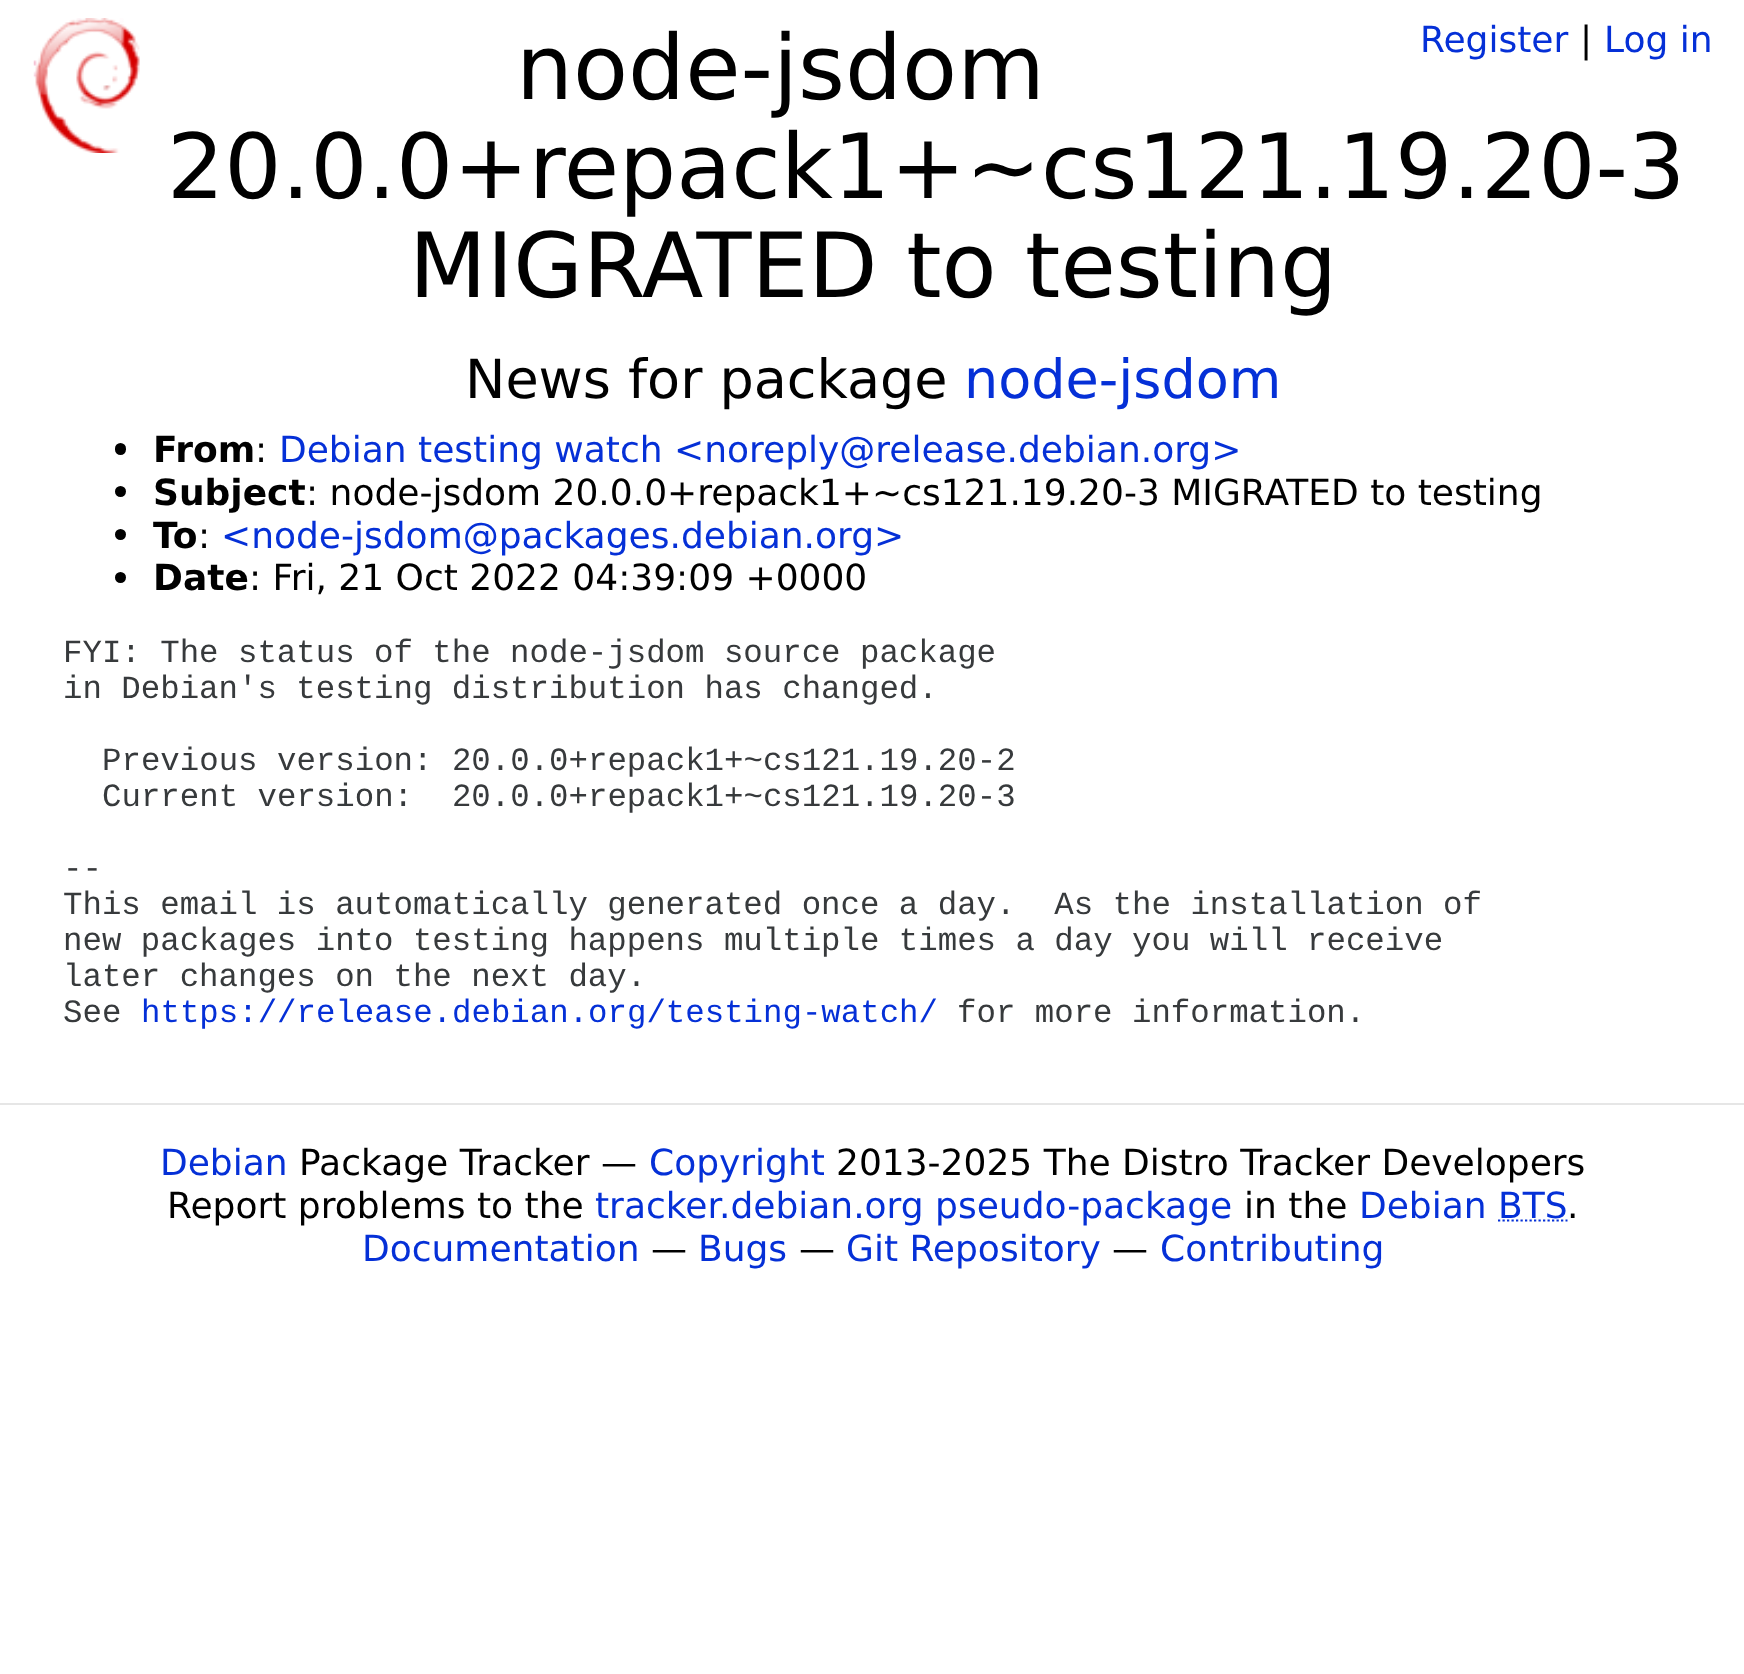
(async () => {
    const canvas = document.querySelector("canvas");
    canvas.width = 1744;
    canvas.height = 1674;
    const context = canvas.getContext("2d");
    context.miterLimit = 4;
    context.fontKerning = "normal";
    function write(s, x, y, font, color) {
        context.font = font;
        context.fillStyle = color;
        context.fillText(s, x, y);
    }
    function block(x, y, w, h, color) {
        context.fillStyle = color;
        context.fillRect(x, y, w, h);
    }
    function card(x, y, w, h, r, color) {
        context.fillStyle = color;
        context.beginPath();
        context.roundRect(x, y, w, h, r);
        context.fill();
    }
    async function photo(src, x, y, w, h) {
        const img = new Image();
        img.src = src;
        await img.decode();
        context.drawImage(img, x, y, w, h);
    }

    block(0, 0, 1744, 1674, "rgb(255, 255, 255)");
    await photo("media/1.png", 33, 18, 107, 135);
    write("Register", 1420, 52, "36px DejaVu Sans", "rgb(5, 48, 215)");
    write("|", 1580, 52, "36px DejaVu Sans", "rgb(0, 0, 0)");
    write("Log in", 1604, 52, "36px DejaVu Sans", "rgb(5, 48, 215)");
    write("node-jsdom", 516, 99, "90px DejaVu Sans", "rgb(0, 0, 0)");
    write("20.0.0+repack1+~cs121.19.20-3", 167, 198, "90px DejaVu Sans", "rgb(0, 0, 0)");
    write("MIGRATED to testing", 409, 297, "90px DejaVu Sans", "rgb(0, 0, 0)");
    write("News for package", 465, 398, "54px DejaVu Sans", "rgb(0, 0, 0)");
    write("node-jsdom", 964, 398, "54px DejaVu Sans", "rgb(5, 48, 215)");
    card(115, 443, 11, 12, 5.5, "rgb(0, 0, 0)");
    write("From", 153, 462, "bold 36px DejaVu Sans", "rgb(0, 0, 0)");
    write(":", 255, 462, "36px DejaVu Sans", "rgb(0, 0, 0)");
    write("Debian testing watch <noreply@release.debian.org>", 279, 462, "36px DejaVu Sans", "rgb(5, 48, 215)");
    context.fillStyle = "rgb(0, 0, 0)";
    context.beginPath();
    context.arc(120.5, 491.5, 5.5, 0, Math.PI * 2);
    context.fill();
    write("Subject", 153, 505, "bold 36px DejaVu Sans", "rgb(0, 0, 0)");
    write(": node-jsdom 20.0.0+repack1+~cs121.19.20-3 MIGRATED to testing", 306, 505, "36px DejaVu Sans", "rgb(0, 0, 0)");
    context.beginPath();
    context.arc(120.5, 534.5, 5.5, 0, Math.PI * 2);
    context.fill();
    write("To", 153, 548, "bold 36px DejaVu Sans", "rgb(0, 0, 0)");
    write(":", 198, 548, "36px DejaVu Sans", "rgb(0, 0, 0)");
    write("<node-jsdom@packages.debian.org>", 221, 548, "36px DejaVu Sans", "rgb(5, 48, 215)");
    context.fillStyle = "rgb(0, 0, 0)";
    context.beginPath();
    context.arc(120.5, 577.5, 5.5, 0, Math.PI * 2);
    context.fill();
    write("Date", 153, 590, "bold 36px DejaVu Sans", "rgb(0, 0, 0)");
    write(": Fri, 21 Oct 2022 04:39:09 +0000", 249, 590, "36px DejaVu Sans", "rgb(0, 0, 0)");
    write("FYI: The status of the node-jsdom source package", 63, 662, "32.4px Liberation Mono", "rgb(55, 58, 60)");
    write("in Debian's testing distribution has changed.", 63, 698, "32.4px Liberation Mono", "rgb(55, 58, 60)");
    write("Previous version: 20.0.0+repack1+~cs121.19.20-2", 102, 770, "32.4px Liberation Mono", "rgb(55, 58, 60)");
    write("Current version:  20.0.0+repack1+~cs121.19.20-3", 102, 806, "32.4px Liberation Mono", "rgb(55, 58, 60)");
    write("--", 63, 878, "32.4px Liberation Mono", "rgb(55, 58, 60)");
    write("This email is automatically generated once a day.  As the installation of", 63, 914, "32.4px Liberation Mono", "rgb(55, 58, 60)");
    write("new packages into testing happens multiple times a day you will receive", 63, 950, "32.4px Liberation Mono", "rgb(55, 58, 60)");
    write("later changes on the next day.", 63, 986, "32.4px Liberation Mono", "rgb(55, 58, 60)");
    write("See", 63, 1022, "32.4px Liberation Mono", "rgb(55, 58, 60)");
    write("https://release.debian.org/testing-watch/", 141, 1022, "32.4px Liberation Mono", "rgb(5, 48, 215)");
    write("for more information.", 957, 1022, "32.4px Liberation Mono", "rgb(55, 58, 60)");
    block(0, 1103, 1744, 2, "rgb(230, 230, 230)");
    write("Debian", 160, 1175, "36px DejaVu Sans", "rgb(5, 48, 215)");
    write("Package Tracker —", 299, 1175, "36px DejaVu Sans", "rgb(0, 0, 0)");
    write("Copyright", 649, 1175, "36px DejaVu Sans", "rgb(5, 48, 215)");
    write("2013-2025 The Distro Tracker Developers", 836, 1175, "36px DejaVu Sans", "rgb(0, 0, 0)");
    write("Report problems to the", 167, 1218, "36px DejaVu Sans", "rgb(0, 0, 0)");
    write("tracker.debian.org pseudo-package", 595, 1218, "36px DejaVu Sans", "rgb(5, 48, 215)");
    write("in the", 1244, 1218, "36px DejaVu Sans", "rgb(0, 0, 0)");
    write("Debian BTS", 1359, 1218, "36px DejaVu Sans", "rgb(5, 48, 215)");
    context.beginPath();
    context.moveTo(1498, 1220.5);
    context.lineTo(1567.5, 1220.5);
    context.strokeStyle = "rgb(5, 48, 215)";
    context.lineWidth = 2.2;
    context.setLineDash([2.25, 2.25]);
    context.stroke();
    write(".", 1567, 1218, "36px DejaVu Sans", "rgb(0, 0, 0)");
    write("Documentation", 362, 1261, "36px DejaVu Sans", "rgb(5, 48, 215)");
    write("—", 651, 1261, "36px DejaVu Sans", "rgb(0, 0, 0)");
    write("Bugs", 698, 1261, "36px DejaVu Sans", "rgb(5, 48, 215)");
    write("—", 799, 1261, "36px DejaVu Sans", "rgb(0, 0, 0)");
    write("Git Repository", 846, 1261, "36px DejaVu Sans", "rgb(5, 48, 215)");
    write("—", 1112, 1261, "36px DejaVu Sans", "rgb(0, 0, 0)");
    write("Contributing", 1160, 1261, "36px DejaVu Sans", "rgb(5, 48, 215)");
})();
